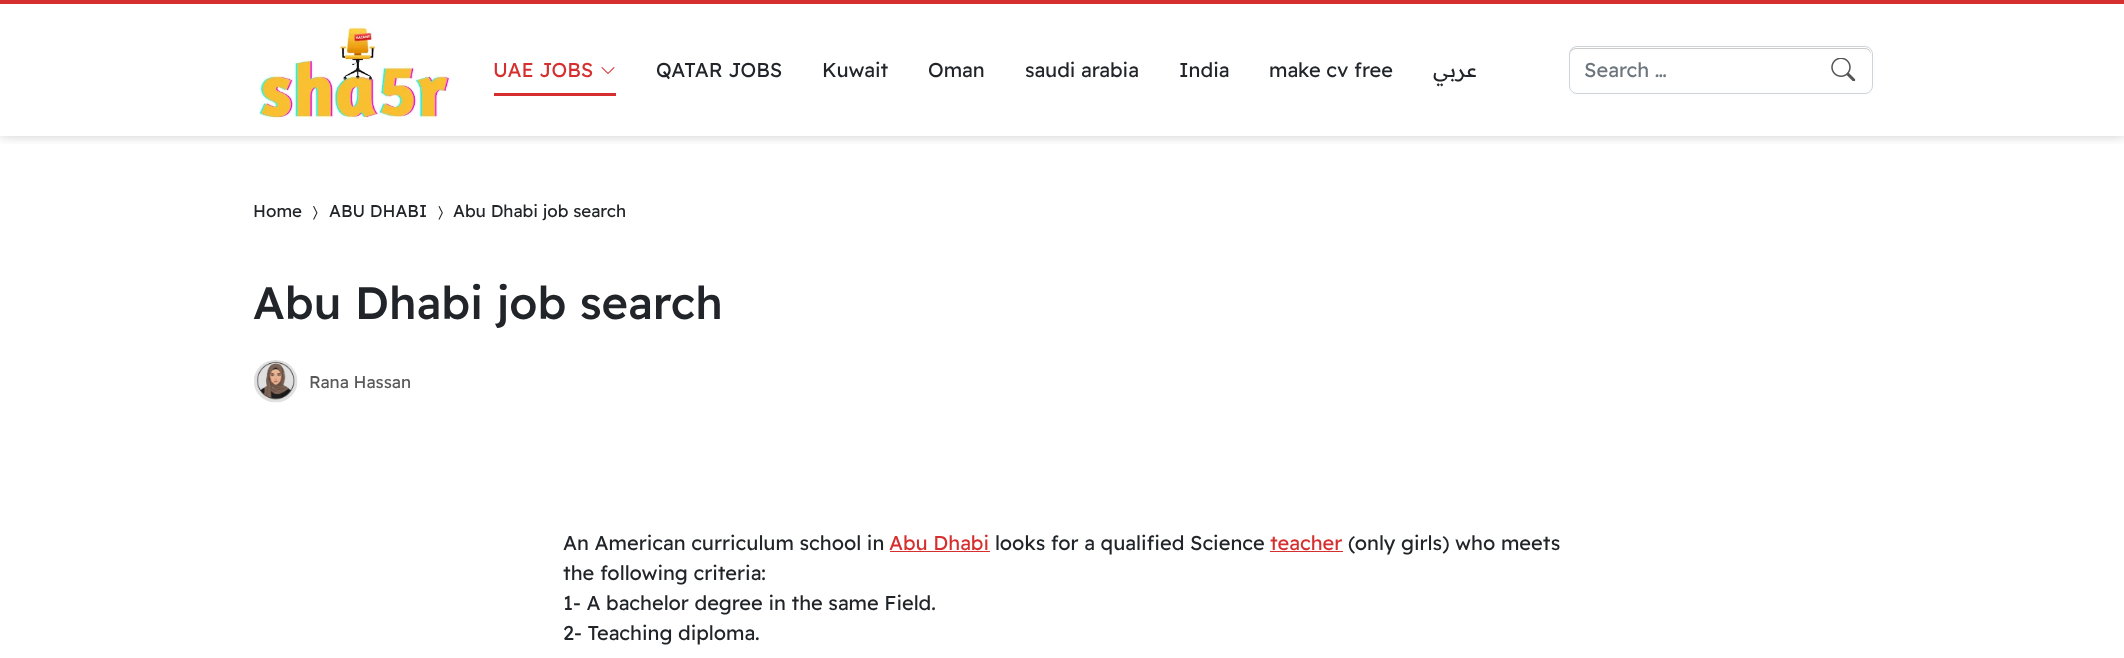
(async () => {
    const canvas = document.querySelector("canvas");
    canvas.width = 2124;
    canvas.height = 658;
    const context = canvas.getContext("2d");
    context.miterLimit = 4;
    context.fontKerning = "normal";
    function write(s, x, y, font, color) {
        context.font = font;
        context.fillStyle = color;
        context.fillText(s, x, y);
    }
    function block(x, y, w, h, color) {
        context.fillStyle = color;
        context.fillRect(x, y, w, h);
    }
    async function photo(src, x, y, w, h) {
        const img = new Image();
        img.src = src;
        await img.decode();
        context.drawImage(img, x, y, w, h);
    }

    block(0, 0, 2124, 658, "rgb(255, 255, 255)");
    context.save();
    context.beginPath();
    context.rect(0, 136, 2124, 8);
    context.clip();
    context.fillStyle = "rgba(0, 0, 0, 0.2)";
    context.filter = "blur(6px)";
    context.beginPath();
    context.rect(0, 0, 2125, 136);
    context.fill();
    context.filter = "none";
    context.restore();
    block(0, 0, 2124, 4, "rgb(214, 47, 47)");
    await photo("media/1.png", 259, 27, 191, 93);
    write("UAE JOBS", 493, 77, "20px Readex Pro", "rgb(214, 47, 47)");
    await photo("media/2.png", 601, 67, 14, 7);
    block(494, 93, 122, 3, "rgb(214, 47, 47)");
    write("QATAR JOBS", 656, 77, "20px Readex Pro", "rgb(33, 37, 41)");
    write("Kuwait", 822, 77, "20px Readex Pro", "rgb(33, 37, 41)");
    write("Oman", 928, 77, "20px Readex Pro", "rgb(33, 37, 41)");
    write("saudi arabia", 1025, 77, "20px Readex Pro", "rgb(33, 37, 41)");
    write("India", 1179, 77, "20px Readex Pro", "rgb(33, 37, 41)");
    write("make cv free", 1269, 77, "20px Readex Pro", "rgb(33, 37, 41)");
    context.direction = "rtl";
    write("عربي", 1477, 77, "20px Readex Pro", "rgb(33, 37, 41)");
    await photo("media/3.png", 1831, 58, 25, 23);
    context.fillStyle = "rgb(204, 204, 204)";
    context.beginPath();
    context.moveTo(1576, 49);
    context.lineTo(1865, 49);
    context.bezierCurveTo(1868, 49, 1871, 52, 1871, 55);
    context.bezierCurveTo(1871, 51, 1869, 48, 1865, 48);
    context.lineTo(1576, 48);
    context.bezierCurveTo(1572, 48, 1570, 51, 1570, 55);
    context.bezierCurveTo(1570, 52, 1573, 49, 1576, 49);
    context.closePath();
    context.fill();
    context.beginPath();
    context.roundRect(1569.5, 46.5, 303, 47, 7.5);
    context.strokeStyle = "rgb(206, 212, 218)";
    context.stroke();
    context.direction = "ltr";
    write("Search …", 1584, 77, "20px Readex Pro", "rgb(108, 117, 125)");
    write("Home", 253, 217, "17px Readex Pro", "rgb(33, 37, 41)");
    await photo("media/4.png", 313, 206, 5, 14);
    write("ABU DHABI", 329, 217, "17px Readex Pro", "rgb(33, 37, 41)");
    await photo("media/5.png", 438, 206, 5, 14);
    write("Abu Dhabi job search", 453, 217, "17px Readex Pro", "rgb(33, 37, 41)");
    write("Abu Dhabi job search", 253, 319, "500 45.25px Readex Pro", "rgb(33, 37, 41)");
    await photo("media/6.png", 254, 360, 44, 43);
    write("Rana Hassan", 309, 388, "17px Readex Pro", "rgb(89, 89, 89)");
    write("An American curriculum school in", 563, 550, "20px Readex Pro", "rgb(33, 37, 41)");
    write("Abu Dhabi", 889, 550, "20px Readex Pro", "rgb(214, 47, 47)");
    block(890, 551, 100, 1, "rgb(214, 47, 47)");
    write("looks for a qualified Science", 995, 550, "20px Readex Pro", "rgb(33, 37, 41)");
    write("teacher", 1270, 550, "20px Readex Pro", "rgb(214, 47, 47)");
    block(1270, 551, 73, 1, "rgb(214, 47, 47)");
    write("(only girls) who meets", 1348, 550, "20px Readex Pro", "rgb(33, 37, 41)");
    write("the following criteria:", 563, 580, "20px Readex Pro", "rgb(33, 37, 41)");
    write("1- A bachelor degree in the same Field.", 563, 610, "20px Readex Pro", "rgb(33, 37, 41)");
    write("2- Teaching diploma.", 563, 640, "20px Readex Pro", "rgb(33, 37, 41)");
})();
